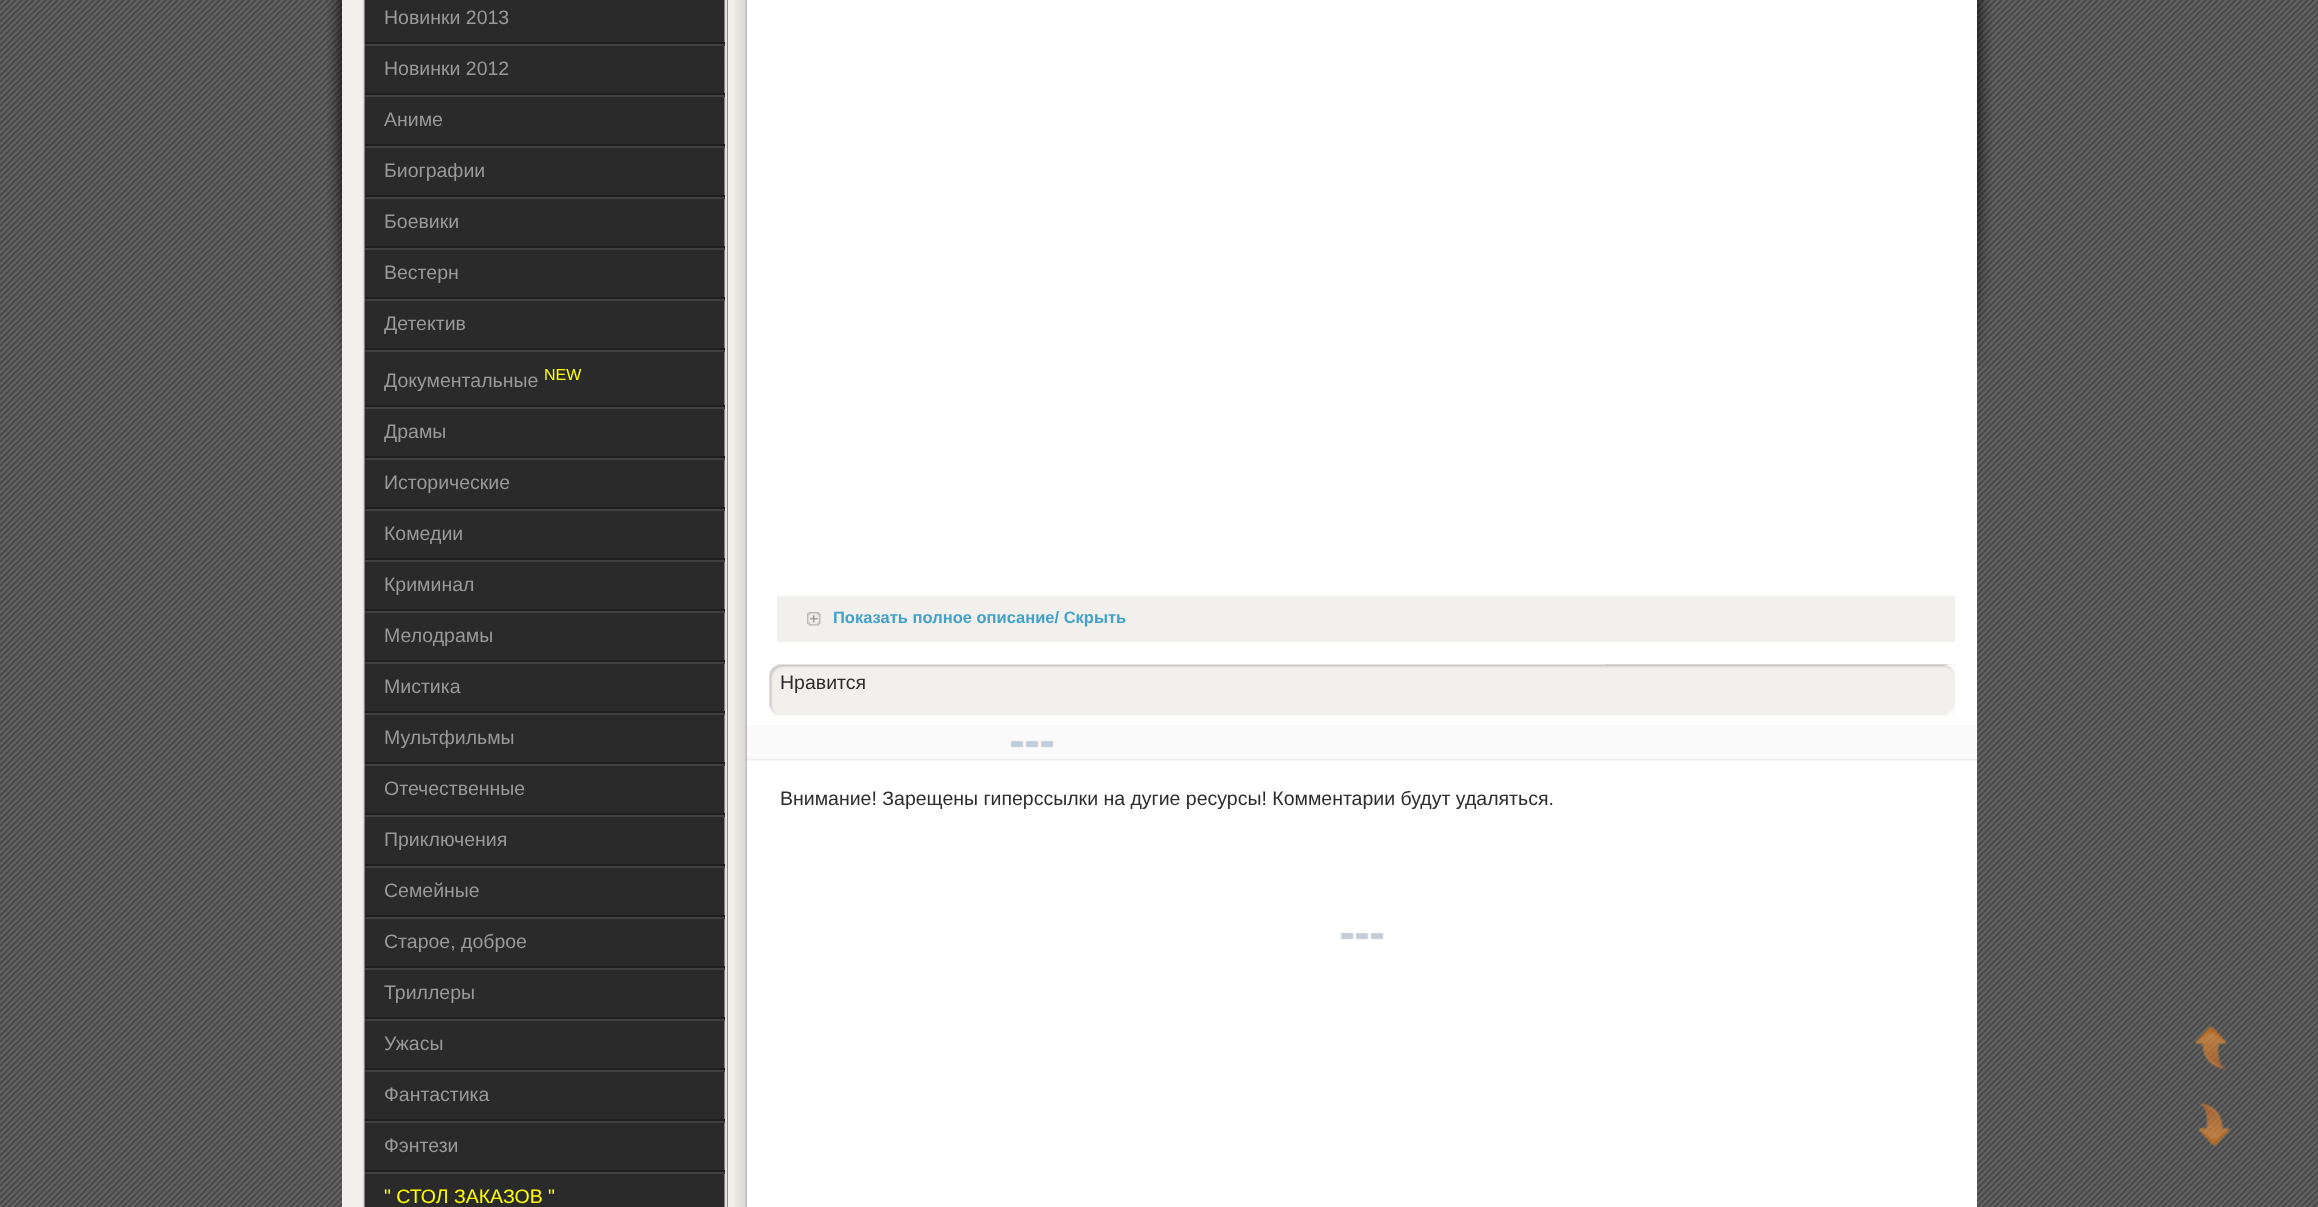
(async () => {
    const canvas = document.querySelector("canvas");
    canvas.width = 2318;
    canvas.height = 1207;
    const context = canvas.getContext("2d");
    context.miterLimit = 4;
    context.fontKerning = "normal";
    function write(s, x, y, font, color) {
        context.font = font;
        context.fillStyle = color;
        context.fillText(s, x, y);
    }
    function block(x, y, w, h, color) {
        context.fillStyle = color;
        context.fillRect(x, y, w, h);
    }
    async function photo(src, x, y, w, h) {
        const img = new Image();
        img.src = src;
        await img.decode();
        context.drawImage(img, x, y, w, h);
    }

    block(0, 0, 2318, 1207, "rgb(255, 255, 255)");
    await photo("media/1.png", 0, 0, 2318, 1207);
    await photo("media/2.png", 327, 0, 15, 368);
    await photo("media/3.png", 1977, 0, 15, 366);
    block(342, 0, 392, 1207, "rgb(241, 240, 237)");
    await photo("media/4.png", 734, 0, 13, 1207);
    block(747, 0, 1230, 1207, "rgb(255, 255, 255)");
    block(364, 0, 364, 1207, "rgb(42, 42, 42)");
    await photo("media/5.png", 362, 0, 366, 1207);
    block(365, 42, 360, 2, "rgb(30, 30, 30)");
    write("Новинки 2013", 384, 24, "19.5px Liberation Sans", "rgb(153, 153, 153)");
    block(365, 44, 360, 2, "rgb(64, 64, 64)");
    block(365, 93, 360, 2, "rgb(30, 30, 30)");
    write("Новинки 2012", 384, 75, "19.5px Liberation Sans", "rgb(153, 153, 153)");
    block(365, 95, 360, 2, "rgb(64, 64, 64)");
    block(365, 144, 360, 2, "rgb(30, 30, 30)");
    write("Аниме", 384, 126, "19.5px Liberation Sans", "rgb(153, 153, 153)");
    block(365, 146, 360, 2, "rgb(64, 64, 64)");
    block(365, 195, 360, 2, "rgb(30, 30, 30)");
    write("Биографии", 384, 177, "19.5px Liberation Sans", "rgb(153, 153, 153)");
    block(365, 197, 360, 2, "rgb(64, 64, 64)");
    block(365, 246, 360, 2, "rgb(30, 30, 30)");
    write("Боевики", 384, 228, "19.5px Liberation Sans", "rgb(153, 153, 153)");
    block(365, 248, 360, 2, "rgb(64, 64, 64)");
    block(365, 297, 360, 2, "rgb(30, 30, 30)");
    write("Вестерн", 384, 279, "19.5px Liberation Sans", "rgb(153, 153, 153)");
    block(365, 299, 360, 2, "rgb(64, 64, 64)");
    block(365, 348, 360, 2, "rgb(30, 30, 30)");
    write("Детектив", 384, 330, "19.5px Liberation Sans", "rgb(153, 153, 153)");
    block(365, 350, 360, 2, "rgb(64, 64, 64)");
    block(365, 405, 360, 2, "rgb(30, 30, 30)");
    write("Документальные", 384, 387, "19.5px Liberation Sans", "rgb(153, 153, 153)");
    write("NEW", 544, 380, "16px Liberation Sans", "rgb(255, 255, 0)");
    block(365, 407, 360, 2, "rgb(64, 64, 64)");
    block(365, 456, 360, 2, "rgb(30, 30, 30)");
    write("Драмы", 384, 438, "19.5px Liberation Sans", "rgb(153, 153, 153)");
    block(365, 458, 360, 2, "rgb(64, 64, 64)");
    block(365, 507, 360, 2, "rgb(30, 30, 30)");
    write("Исторические", 384, 489, "19.5px Liberation Sans", "rgb(153, 153, 153)");
    block(365, 509, 360, 2, "rgb(64, 64, 64)");
    block(365, 558, 360, 2, "rgb(30, 30, 30)");
    write("Комедии", 384, 540, "19.5px Liberation Sans", "rgb(153, 153, 153)");
    block(365, 560, 360, 2, "rgb(64, 64, 64)");
    block(365, 609, 360, 2, "rgb(30, 30, 30)");
    write("Криминал", 384, 591, "19.5px Liberation Sans", "rgb(153, 153, 153)");
    block(365, 611, 360, 2, "rgb(64, 64, 64)");
    block(365, 660, 360, 2, "rgb(30, 30, 30)");
    write("Мелодрамы", 384, 642, "19.5px Liberation Sans", "rgb(153, 153, 153)");
    block(365, 662, 360, 2, "rgb(64, 64, 64)");
    block(365, 711, 360, 2, "rgb(30, 30, 30)");
    write("Мистика", 384, 693, "19.5px Liberation Sans", "rgb(153, 153, 153)");
    block(365, 713, 360, 2, "rgb(64, 64, 64)");
    block(365, 762, 360, 2, "rgb(30, 30, 30)");
    write("Мультфильмы", 384, 744, "19.5px Liberation Sans", "rgb(153, 153, 153)");
    block(365, 764, 360, 2, "rgb(64, 64, 64)");
    block(365, 813, 360, 2, "rgb(30, 30, 30)");
    write("Отечественные", 384, 795, "19.5px Liberation Sans", "rgb(153, 153, 153)");
    block(365, 815, 360, 2, "rgb(64, 64, 64)");
    block(365, 864, 360, 2, "rgb(30, 30, 30)");
    write("Приключения", 384, 846, "19.5px Liberation Sans", "rgb(153, 153, 153)");
    block(365, 866, 360, 2, "rgb(64, 64, 64)");
    block(365, 915, 360, 2, "rgb(30, 30, 30)");
    write("Семейные", 384, 897, "19.5px Liberation Sans", "rgb(153, 153, 153)");
    block(365, 917, 360, 2, "rgb(64, 64, 64)");
    block(365, 966, 360, 2, "rgb(30, 30, 30)");
    write("Старое, доброе", 384, 948, "19.5px Liberation Sans", "rgb(153, 153, 153)");
    block(365, 968, 360, 2, "rgb(64, 64, 64)");
    block(365, 1017, 360, 2, "rgb(30, 30, 30)");
    write("Триллеры", 384, 999, "19.5px Liberation Sans", "rgb(153, 153, 153)");
    block(365, 1019, 360, 2, "rgb(64, 64, 64)");
    block(365, 1068, 360, 2, "rgb(30, 30, 30)");
    write("Ужасы", 384, 1050, "19.5px Liberation Sans", "rgb(153, 153, 153)");
    block(365, 1070, 360, 2, "rgb(64, 64, 64)");
    block(365, 1119, 360, 2, "rgb(30, 30, 30)");
    write("Фантастика", 384, 1101, "19.5px Liberation Sans", "rgb(153, 153, 153)");
    block(365, 1121, 360, 2, "rgb(64, 64, 64)");
    block(365, 1170, 360, 2, "rgb(30, 30, 30)");
    write("Фэнтези", 384, 1152, "19.5px Liberation Sans", "rgb(153, 153, 153)");
    block(365, 1172, 360, 2, "rgb(64, 64, 64)");
    write("\" СТОЛ ЗАКАЗОВ \"", 384, 1203, "19.5px Liberation Sans", "rgb(255, 255, 0)");
    await photo("media/6.png", 747, 725, 1230, 36);
    block(777, 596, 1178, 46, "rgb(241, 240, 237)");
    await photo("media/7.png", 807, 612, 14, 14);
    write("Показать полное описание/ Скрыть", 833, 623, "bold 16.5px Liberation Sans", "rgb(68, 161, 199)");
    block(1954, 665, 1, 52, "rgb(241, 240, 237)");
    await photo("media/8.png", 769, 664, 1186, 53);
    await photo("media/9.png", 1605, 664, 350, 52);
    write("Нравится", 780, 689, "19.5px Liberation Sans", "rgb(44, 44, 44)");
    await photo("media/10.png", 1010, 740, 44, 8);
    write("Внимание! Зарещены гиперссылки на дугие ресурсы! Комментарии будут удаляться.", 780, 805, "19.5px Liberation Sans", "rgb(44, 44, 44)");
    await photo("media/11.png", 1340, 932, 44, 8);
    await photo("media/12.png", 2194, 1025, 33, 45);
    await photo("media/13.png", 2198, 1102, 33, 45);
})();
